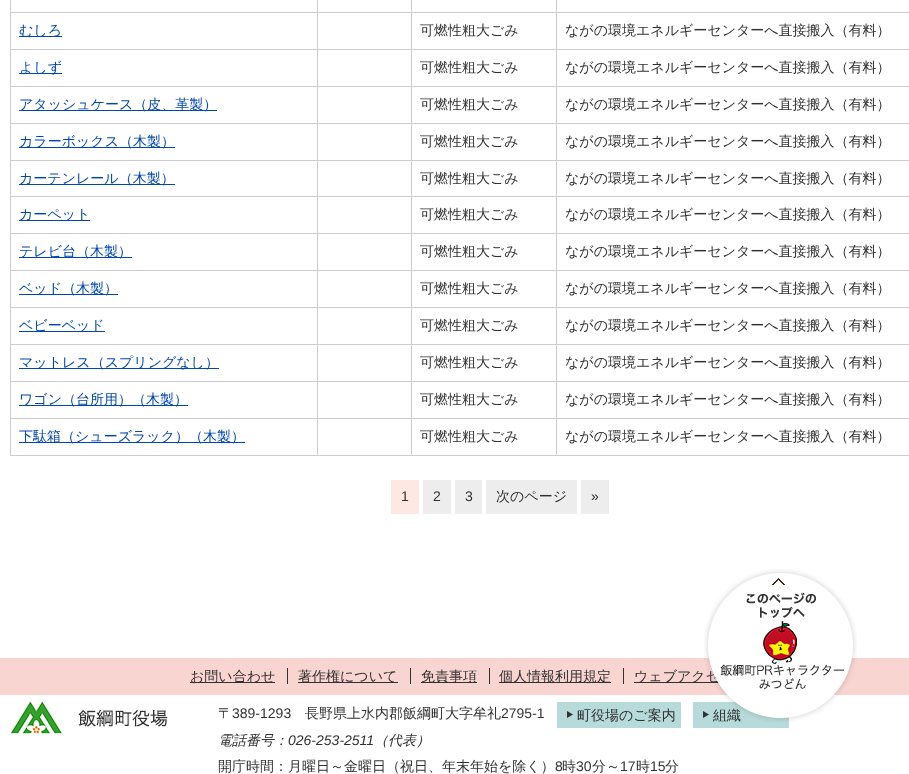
(async () => {
    const canvas = document.querySelector("canvas");
    canvas.width = 909;
    canvas.height = 774;
    const context = canvas.getContext("2d");
    context.miterLimit = 4;
    context.fontKerning = "normal";
    function write(s, x, y, font, color) {
        context.font = font;
        context.fillStyle = color;
        context.fillText(s, x, y);
    }
    function block(x, y, w, h, color) {
        context.fillStyle = color;
        context.fillRect(x, y, w, h);
    }
    async function photo(src, x, y, w, h) {
        const img = new Image();
        img.src = src;
        await img.decode();
        context.drawImage(img, x, y, w, h);
    }

    block(0, 0, 909, 774, "rgb(255, 255, 255)");
    block(556, 12, 353, 1, "rgb(204, 204, 204)");
    block(556, 49, 353, 1, "rgb(204, 204, 204)");
    block(556, 86, 353, 1, "rgb(204, 204, 204)");
    block(556, 123, 353, 1, "rgb(204, 204, 204)");
    block(556, 160, 353, 1, "rgb(204, 204, 204)");
    block(556, 196, 353, 1, "rgb(204, 204, 204)");
    block(556, 233, 353, 1, "rgb(204, 204, 204)");
    block(556, 270, 353, 1, "rgb(204, 204, 204)");
    block(556, 307, 353, 1, "rgb(204, 204, 204)");
    block(556, 344, 353, 1, "rgb(204, 204, 204)");
    block(556, 381, 353, 1, "rgb(204, 204, 204)");
    block(556, 418, 353, 1, "rgb(204, 204, 204)");
    block(556, 455, 353, 1, "rgb(204, 204, 204)");
    block(556, 418, 1, 38, "rgb(204, 204, 204)");
    block(411, 418, 146, 1, "rgb(204, 204, 204)");
    block(556, 381, 1, 38, "rgb(204, 204, 204)");
    block(411, 381, 146, 1, "rgb(204, 204, 204)");
    block(556, 344, 1, 38, "rgb(204, 204, 204)");
    block(411, 344, 146, 1, "rgb(204, 204, 204)");
    block(556, 307, 1, 38, "rgb(204, 204, 204)");
    block(411, 307, 146, 1, "rgb(204, 204, 204)");
    block(556, 270, 1, 38, "rgb(204, 204, 204)");
    block(411, 270, 146, 1, "rgb(204, 204, 204)");
    block(556, 233, 1, 38, "rgb(204, 204, 204)");
    block(411, 233, 146, 1, "rgb(204, 204, 204)");
    block(556, 196, 1, 38, "rgb(204, 204, 204)");
    block(411, 196, 146, 1, "rgb(204, 204, 204)");
    block(556, 160, 1, 37, "rgb(204, 204, 204)");
    block(411, 160, 146, 1, "rgb(204, 204, 204)");
    block(556, 123, 1, 38, "rgb(204, 204, 204)");
    block(411, 123, 146, 1, "rgb(204, 204, 204)");
    block(556, 86, 1, 38, "rgb(204, 204, 204)");
    block(411, 86, 146, 1, "rgb(204, 204, 204)");
    block(556, 49, 1, 38, "rgb(204, 204, 204)");
    block(411, 49, 146, 1, "rgb(204, 204, 204)");
    block(556, 12, 1, 38, "rgb(204, 204, 204)");
    block(411, 12, 146, 1, "rgb(204, 204, 204)");
    block(411, 455, 146, 1, "rgb(204, 204, 204)");
    block(411, 418, 1, 38, "rgb(204, 204, 204)");
    block(317, 418, 95, 1, "rgb(204, 204, 204)");
    block(411, 381, 1, 38, "rgb(204, 204, 204)");
    block(317, 381, 95, 1, "rgb(204, 204, 204)");
    block(411, 344, 1, 38, "rgb(204, 204, 204)");
    block(317, 344, 95, 1, "rgb(204, 204, 204)");
    block(411, 307, 1, 38, "rgb(204, 204, 204)");
    block(317, 307, 95, 1, "rgb(204, 204, 204)");
    block(411, 270, 1, 38, "rgb(204, 204, 204)");
    block(317, 270, 95, 1, "rgb(204, 204, 204)");
    block(411, 233, 1, 38, "rgb(204, 204, 204)");
    block(317, 233, 95, 1, "rgb(204, 204, 204)");
    block(411, 196, 1, 38, "rgb(204, 204, 204)");
    block(317, 196, 95, 1, "rgb(204, 204, 204)");
    block(411, 160, 1, 37, "rgb(204, 204, 204)");
    block(317, 160, 95, 1, "rgb(204, 204, 204)");
    block(411, 123, 1, 38, "rgb(204, 204, 204)");
    block(317, 123, 95, 1, "rgb(204, 204, 204)");
    block(411, 86, 1, 38, "rgb(204, 204, 204)");
    block(317, 86, 95, 1, "rgb(204, 204, 204)");
    block(411, 49, 1, 38, "rgb(204, 204, 204)");
    block(317, 49, 95, 1, "rgb(204, 204, 204)");
    block(411, 12, 1, 38, "rgb(204, 204, 204)");
    block(317, 12, 95, 1, "rgb(204, 204, 204)");
    block(317, 455, 95, 1, "rgb(204, 204, 204)");
    block(317, 418, 1, 38, "rgb(204, 204, 204)");
    block(10, 418, 308, 1, "rgb(204, 204, 204)");
    block(317, 381, 1, 38, "rgb(204, 204, 204)");
    block(10, 381, 308, 1, "rgb(204, 204, 204)");
    block(317, 344, 1, 38, "rgb(204, 204, 204)");
    block(10, 344, 308, 1, "rgb(204, 204, 204)");
    block(317, 307, 1, 38, "rgb(204, 204, 204)");
    block(10, 307, 308, 1, "rgb(204, 204, 204)");
    block(317, 270, 1, 38, "rgb(204, 204, 204)");
    block(10, 270, 308, 1, "rgb(204, 204, 204)");
    block(317, 233, 1, 38, "rgb(204, 204, 204)");
    block(10, 233, 308, 1, "rgb(204, 204, 204)");
    block(317, 196, 1, 38, "rgb(204, 204, 204)");
    block(10, 196, 308, 1, "rgb(204, 204, 204)");
    block(317, 160, 1, 37, "rgb(204, 204, 204)");
    block(10, 160, 308, 1, "rgb(204, 204, 204)");
    block(317, 123, 1, 38, "rgb(204, 204, 204)");
    block(10, 123, 308, 1, "rgb(204, 204, 204)");
    block(317, 86, 1, 38, "rgb(204, 204, 204)");
    block(10, 86, 308, 1, "rgb(204, 204, 204)");
    block(317, 49, 1, 38, "rgb(204, 204, 204)");
    block(10, 49, 308, 1, "rgb(204, 204, 204)");
    block(317, 12, 1, 38, "rgb(204, 204, 204)");
    block(10, 12, 308, 1, "rgb(204, 204, 204)");
    block(317, 0, 1, 13, "rgb(204, 204, 204)");
    block(411, 0, 1, 13, "rgb(204, 204, 204)");
    block(556, 0, 1, 13, "rgb(204, 204, 204)");
    block(10, 455, 308, 1, "rgb(204, 204, 204)");
    block(10, 418, 1, 38, "rgb(204, 204, 204)");
    block(10, 381, 1, 38, "rgb(204, 204, 204)");
    block(10, 344, 1, 38, "rgb(204, 204, 204)");
    block(10, 307, 1, 38, "rgb(204, 204, 204)");
    block(10, 270, 1, 38, "rgb(204, 204, 204)");
    block(10, 233, 1, 38, "rgb(204, 204, 204)");
    block(10, 196, 1, 38, "rgb(204, 204, 204)");
    block(10, 160, 1, 37, "rgb(204, 204, 204)");
    block(10, 123, 1, 38, "rgb(204, 204, 204)");
    block(10, 86, 1, 38, "rgb(204, 204, 204)");
    block(10, 49, 1, 38, "rgb(204, 204, 204)");
    block(10, 0, 1, 50, "rgb(204, 204, 204)");
    block(19, 36, 43, 1, "rgb(0, 71, 178)");
    write("むしろ", 19, 35, "500 14px WenQuanYi Zen Hei", "rgb(0, 71, 178)");
    write("可燃性粗大ごみ", 420, 35, "500 14px WenQuanYi Zen Hei", "rgb(49, 49, 49)");
    write("ながの環境エネルギーセンターへ直接搬入（有料）", 565, 35, "500 14px WenQuanYi Zen Hei", "rgb(49, 49, 49)");
    block(19, 73, 43, 1, "rgb(0, 71, 178)");
    write("よしず", 19, 72, "500 14px WenQuanYi Zen Hei", "rgb(0, 71, 178)");
    write("可燃性粗大ごみ", 420, 72, "500 14px WenQuanYi Zen Hei", "rgb(49, 49, 49)");
    write("ながの環境エネルギーセンターへ直接搬入（有料）", 565, 72, "500 14px WenQuanYi Zen Hei", "rgb(49, 49, 49)");
    block(19, 110, 198, 1, "rgb(0, 71, 178)");
    write("アタッシュケース（皮、革製）", 19, 109, "500 14px WenQuanYi Zen Hei", "rgb(0, 71, 178)");
    write("可燃性粗大ごみ", 420, 109, "500 14px WenQuanYi Zen Hei", "rgb(49, 49, 49)");
    write("ながの環境エネルギーセンターへ直接搬入（有料）", 565, 109, "500 14px WenQuanYi Zen Hei", "rgb(49, 49, 49)");
    block(19, 147, 156, 1, "rgb(0, 71, 178)");
    write("カラーボックス（木製）", 19, 146, "500 14px WenQuanYi Zen Hei", "rgb(0, 71, 178)");
    write("可燃性粗大ごみ", 420, 146, "500 14px WenQuanYi Zen Hei", "rgb(49, 49, 49)");
    write("ながの環境エネルギーセンターへ直接搬入（有料）", 565, 146, "500 14px WenQuanYi Zen Hei", "rgb(49, 49, 49)");
    block(19, 184, 156, 1, "rgb(0, 71, 178)");
    write("カーテンレール（木製）", 19, 183, "500 14px WenQuanYi Zen Hei", "rgb(0, 71, 178)");
    write("可燃性粗大ごみ", 420, 183, "500 14px WenQuanYi Zen Hei", "rgb(49, 49, 49)");
    write("ながの環境エネルギーセンターへ直接搬入（有料）", 565, 183, "500 14px WenQuanYi Zen Hei", "rgb(49, 49, 49)");
    block(19, 220, 71, 1, "rgb(0, 71, 178)");
    write("カーペット", 19, 219, "500 14px WenQuanYi Zen Hei", "rgb(0, 71, 178)");
    write("可燃性粗大ごみ", 420, 219, "500 14px WenQuanYi Zen Hei", "rgb(49, 49, 49)");
    write("ながの環境エネルギーセンターへ直接搬入（有料）", 565, 219, "500 14px WenQuanYi Zen Hei", "rgb(49, 49, 49)");
    block(19, 257, 113, 1, "rgb(0, 71, 178)");
    write("テレビ台（木製）", 19, 256, "500 14px WenQuanYi Zen Hei", "rgb(0, 71, 178)");
    write("可燃性粗大ごみ", 420, 256, "500 14px WenQuanYi Zen Hei", "rgb(49, 49, 49)");
    write("ながの環境エネルギーセンターへ直接搬入（有料）", 565, 256, "500 14px WenQuanYi Zen Hei", "rgb(49, 49, 49)");
    block(19, 294, 99, 1, "rgb(0, 71, 178)");
    write("ベッド（木製）", 19, 293, "500 14px WenQuanYi Zen Hei", "rgb(0, 71, 178)");
    write("可燃性粗大ごみ", 420, 293, "500 14px WenQuanYi Zen Hei", "rgb(49, 49, 49)");
    write("ながの環境エネルギーセンターへ直接搬入（有料）", 565, 293, "500 14px WenQuanYi Zen Hei", "rgb(49, 49, 49)");
    block(19, 331, 86, 1, "rgb(0, 71, 178)");
    write("ベビーベッド", 19, 330, "500 14px WenQuanYi Zen Hei", "rgb(0, 71, 178)");
    write("可燃性粗大ごみ", 420, 330, "500 14px WenQuanYi Zen Hei", "rgb(49, 49, 49)");
    write("ながの環境エネルギーセンターへ直接搬入（有料）", 565, 330, "500 14px WenQuanYi Zen Hei", "rgb(49, 49, 49)");
    block(19, 368, 200, 1, "rgb(0, 71, 178)");
    write("マットレス（スプリングなし）", 19, 367, "500 14px WenQuanYi Zen Hei", "rgb(0, 71, 178)");
    write("可燃性粗大ごみ", 420, 367, "500 14px WenQuanYi Zen Hei", "rgb(49, 49, 49)");
    write("ながの環境エネルギーセンターへ直接搬入（有料）", 565, 367, "500 14px WenQuanYi Zen Hei", "rgb(49, 49, 49)");
    block(19, 405, 169, 1, "rgb(0, 71, 178)");
    write("ワゴン（台所用）（木製）", 19, 404, "500 14px WenQuanYi Zen Hei", "rgb(0, 71, 178)");
    write("可燃性粗大ごみ", 420, 404, "500 14px WenQuanYi Zen Hei", "rgb(49, 49, 49)");
    write("ながの環境エネルギーセンターへ直接搬入（有料）", 565, 404, "500 14px WenQuanYi Zen Hei", "rgb(49, 49, 49)");
    block(19, 442, 226, 1, "rgb(0, 71, 178)");
    write("下駄箱（シューズラック）（木製）", 19, 441, "500 14px WenQuanYi Zen Hei", "rgb(0, 71, 178)");
    write("可燃性粗大ごみ", 420, 441, "500 14px WenQuanYi Zen Hei", "rgb(49, 49, 49)");
    write("ながの環境エネルギーセンターへ直接搬入（有料）", 565, 441, "500 14px WenQuanYi Zen Hei", "rgb(49, 49, 49)");
    block(391, 480, 28, 34, "rgb(255, 231, 228)");
    write("1", 401, 501, "14px Liberation Sans", "rgb(49, 49, 49)");
    block(423, 480, 28, 34, "rgb(237, 237, 237)");
    write("2", 433, 501, "14px Liberation Sans", "rgb(49, 49, 49)");
    block(455, 480, 27, 34, "rgb(237, 237, 237)");
    write("3", 465, 501, "14px Liberation Sans", "rgb(49, 49, 49)");
    block(486, 480, 91, 34, "rgb(237, 237, 237)");
    write("次のページ", 496, 501, "500 14px WenQuanYi Zen Hei", "rgb(49, 49, 49)");
    block(581, 480, 28, 34, "rgb(237, 237, 237)");
    write("»", 591, 501, "14px Liberation Sans", "rgb(49, 49, 49)");
    block(0, 658, 909, 37, "rgb(249, 213, 209)");
    block(634, 682, 85, 1, "rgb(49, 49, 49)");
    write("ウェブアクセ", 634, 681, "500 14px WenQuanYi Zen Hei", "rgb(49, 49, 49)");
    block(693, 702, 96, 26, "rgb(183, 219, 218)");
    await photo("media/3.png", 703, 711, 6, 7);
    write("組織", 713, 720, "500 14px WenQuanYi Zen Hei", "rgb(49, 49, 49)");
    await photo("media/1.png", 704, 569, 153, 153);
    block(190, 682, 85, 1, "rgb(49, 49, 49)");
    write("お問い合わせ", 190, 681, "500 14px WenQuanYi Zen Hei", "rgb(49, 49, 49)");
    block(287, 668, 1, 16, "rgb(49, 49, 49)");
    block(298, 682, 100, 1, "rgb(49, 49, 49)");
    write("著作権について", 298, 681, "500 14px WenQuanYi Zen Hei", "rgb(49, 49, 49)");
    block(410, 668, 1, 16, "rgb(49, 49, 49)");
    block(421, 682, 56, 1, "rgb(49, 49, 49)");
    write("免責事項", 421, 681, "500 14px WenQuanYi Zen Hei", "rgb(49, 49, 49)");
    block(489, 668, 1, 16, "rgb(49, 49, 49)");
    block(499, 682, 112, 1, "rgb(49, 49, 49)");
    write("個人情報利用規定", 499, 681, "500 14px WenQuanYi Zen Hei", "rgb(49, 49, 49)");
    block(623, 668, 1, 16, "rgb(49, 49, 49)");
    await photo("media/2.png", 11, 701, 157, 33);
    write("〒", 218, 718, "500 14px WenQuanYi Zen Hei", "rgb(49, 49, 49)");
    write("長野県上水内郡飯綱町大字牟礼", 305, 718, "500 14px WenQuanYi Zen Hei", "rgb(49, 49, 49)");
    block(557, 702, 124, 26, "rgb(183, 219, 218)");
    await photo("media/3.png", 567, 711, 6, 7);
    write("町役場のご案内", 577, 720, "500 14px WenQuanYi Zen Hei", "rgb(49, 49, 49)");
    write("電話番号：", 218, 745, "italic 500 14px WenQuanYi Zen Hei", "rgb(49, 49, 49)");
    write("026-253-2511", 288, 745, "italic 14px Liberation Sans", "rgb(49, 49, 49)");
    write("（代表）", 374, 745, "italic 500 14px WenQuanYi Zen Hei", "rgb(49, 49, 49)");
    write("開庁時間：月曜日～金曜日（祝日、年末年始を除く）", 218, 771, "500 14px WenQuanYi Zen Hei", "rgb(49, 49, 49)");
    write("8", 555, 771, "14px Liberation Sans", "rgb(49, 49, 49)");
    write("時", 562, 771, "500 14px WenQuanYi Zen Hei", "rgb(49, 49, 49)");
    write("30", 576, 771, "14px Liberation Sans", "rgb(49, 49, 49)");
    write("分～", 592, 771, "500 14px WenQuanYi Zen Hei", "rgb(49, 49, 49)");
    write("17", 620, 771, "14px Liberation Sans", "rgb(49, 49, 49)");
    write("時", 636, 771, "500 14px WenQuanYi Zen Hei", "rgb(49, 49, 49)");
    write("15", 650, 771, "14px Liberation Sans", "rgb(49, 49, 49)");
    write("分", 665, 771, "500 14px WenQuanYi Zen Hei", "rgb(49, 49, 49)");
    write("389-1293", 232, 718, "14px Liberation Sans", "rgb(49, 49, 49)");
    write("2795-1", 501, 718, "14px Liberation Sans", "rgb(49, 49, 49)");
})();
